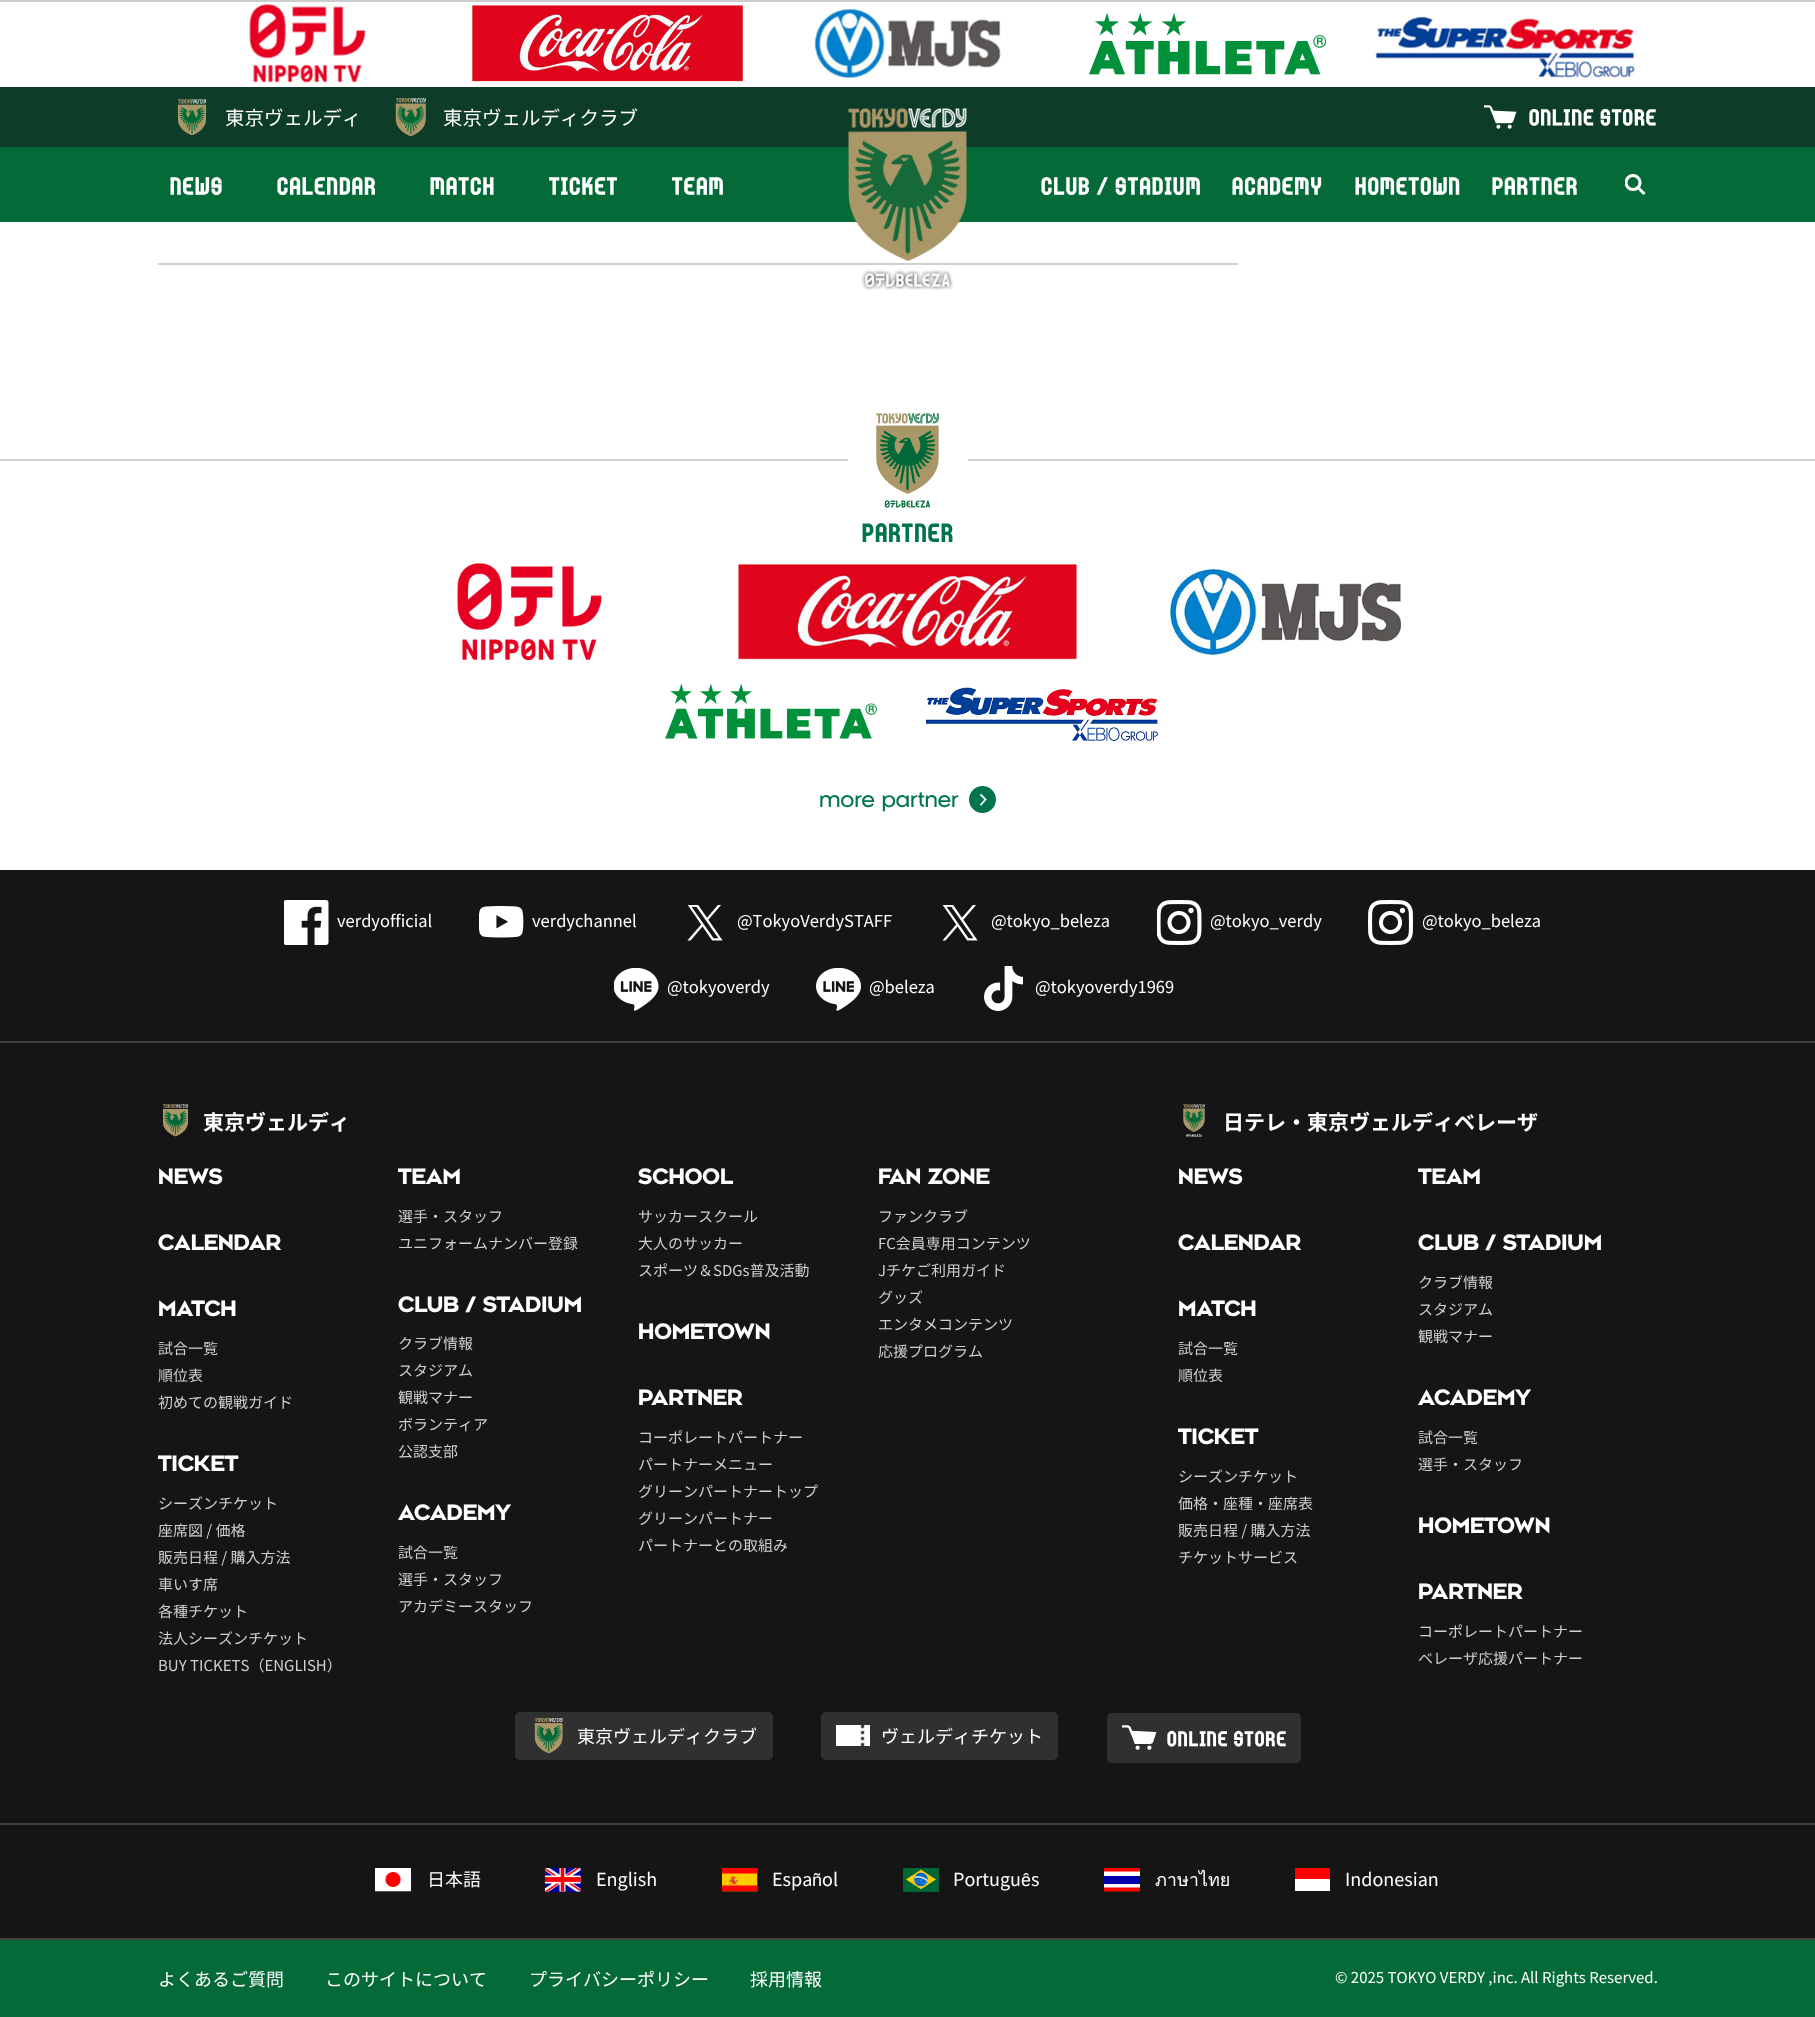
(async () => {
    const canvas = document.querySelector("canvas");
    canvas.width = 1815;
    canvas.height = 2017;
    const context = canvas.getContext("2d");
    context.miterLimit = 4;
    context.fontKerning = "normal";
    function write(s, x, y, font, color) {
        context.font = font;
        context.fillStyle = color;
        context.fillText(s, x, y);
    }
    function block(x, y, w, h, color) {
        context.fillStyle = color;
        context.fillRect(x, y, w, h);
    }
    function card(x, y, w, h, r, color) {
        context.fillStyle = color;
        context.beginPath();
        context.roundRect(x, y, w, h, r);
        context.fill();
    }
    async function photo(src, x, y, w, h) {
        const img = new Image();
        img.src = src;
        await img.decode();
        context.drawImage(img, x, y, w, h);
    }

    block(0, 0, 1815, 2017, "rgb(255, 255, 255)");
    block(0, 0, 1815, 2, "rgb(204, 204, 204)");
    await photo("media/1.png", 249, 4, 117, 79);
    await photo("media/2.png", 472, 5, 271, 77);
    await photo("media/3.png", 814, 9, 187, 69);
    await photo("media/4.png", 1089, 12, 238, 63);
    await photo("media/5.png", 1375, 16, 260, 62);
    block(0, 87, 1815, 60, "rgb(13, 60, 40)");
    await photo("media/6.png", 395, 98, 31, 39);
    write("東京ヴェルディクラブ", 443, 125, "19.5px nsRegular", "rgb(255, 255, 255)");
    await photo("media/7.png", 1484, 105, 33, 24);
    context.letterSpacing = "1.25px";
    write("ONLINE STORE", 1529, 122, "21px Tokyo", "rgb(255, 255, 255)");
    block(0, 147, 1815, 75, "rgb(4, 106, 56)");
    context.letterSpacing = "1.4px";
    write("NEWS", 170, 191, "22.5px Tokyo", "rgb(255, 255, 255)");
    write("CALENDAR", 277, 191, "22.5px Tokyo", "rgb(255, 255, 255)");
    write("MATCH", 430, 191, "22.5px Tokyo", "rgb(255, 255, 255)");
    write("TICKET", 549, 191, "22.5px Tokyo", "rgb(255, 255, 255)");
    write("TEAM", 672, 191, "22.5px Tokyo", "rgb(255, 255, 255)");
    write("CLUB / STADIUM", 1041, 191, "22.5px Tokyo", "rgb(255, 255, 255)");
    write("ACADEMY", 1232, 191, "22.5px Tokyo", "rgb(255, 255, 255)");
    write("HOMETOWN", 1355, 191, "22.5px Tokyo", "rgb(255, 255, 255)");
    write("PARTNER", 1492, 191, "22.5px Tokyo", "rgb(255, 255, 255)");
    context.save();
    context.beginPath();
    context.rect(1625, 174, 21, 21);
    context.clip();
    context.beginPath();
    context.arc(1633, 182.5, 7, 0, Math.PI * 2);
    context.strokeStyle = "rgb(255, 255, 255)";
    context.lineWidth = 3.1;
    context.stroke();
    context.restore();
    context.beginPath();
    context.moveTo(1638, 187.5);
    context.lineTo(1644.5, 194);
    context.strokeStyle = "rgb(255, 255, 255)";
    context.lineWidth = 3.1;
    context.stroke();
    await photo("media/8.png", 177, 99, 30, 36);
    context.letterSpacing = "0px";
    write("東京ヴェルディ", 225, 125, "19.5px nsRegular", "rgb(255, 255, 255)");
    block(158, 263, 1080, 2, "rgb(208, 208, 208)");
    await photo("media/9.png", 848, 108, 119, 182);
    block(0, 459, 1815, 2, "rgb(208, 208, 208)");
    block(848, 459, 120, 2, "rgb(255, 255, 255)");
    await photo("media/10.png", 876, 413, 63, 95);
    context.letterSpacing = "1.5px";
    write("PARTNER", 862, 538, "24px Tokyo", "rgb(0, 116, 75)");
    await photo("media/11.png", 457, 563, 145, 98);
    await photo("media/12.png", 738, 564, 339, 96);
    await photo("media/13.png", 1170, 569, 231, 86);
    await photo("media/14.png", 665, 683, 212, 56);
    await photo("media/15.png", 926, 687, 232, 54);
    context.letterSpacing = "0px";
    write("more partner", 819, 807, "21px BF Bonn", "rgb(0, 116, 75)");
    context.beginPath();
    context.arc(982.5, 799.5, 13.5, 0, Math.PI * 2);
    context.fill();
    context.beginPath();
    context.moveTo(981, 804.5);
    context.lineTo(985.5, 799.5);
    context.moveTo(981, 795);
    context.lineTo(985.5, 799.5);
    context.lineWidth = 1.8;
    context.lineCap = "square";
    context.stroke();
    block(0, 870, 1815, 171, "rgb(21, 21, 21)");
    block(0, 1041, 1815, 2, "rgb(64, 64, 64)");
    await photo("media/16.png", 284, 900, 45, 45);
    write("verdyofficial", 337, 927, "16.5px nsRegular", "rgb(255, 255, 255)");
    await photo("media/17.png", 479, 906, 45, 32);
    write("verdychannel", 532, 927, "16.5px nsRegular", "rgb(255, 255, 255)");
    await photo("media/18.png", 687, 905, 36, 36);
    write("@TokyoVerdySTAFF", 737, 927, "16.5px nsRegular", "rgb(255, 255, 255)");
    await photo("media/18.png", 942, 905, 36, 36);
    write("@tokyo_beleza", 991, 927, "16.5px nsRegular", "rgb(255, 255, 255)");
    await photo("media/19.png", 1157, 900, 45, 45);
    write("@tokyo_verdy", 1210, 927, "16.5px nsRegular", "rgb(255, 255, 255)");
    await photo("media/20.png", 1368, 900, 45, 45);
    write("@tokyo_beleza", 1422, 927, "16.5px nsRegular", "rgb(255, 255, 255)");
    await photo("media/21.png", 614, 968, 45, 43);
    write("@tokyoverdy", 667, 993, "16.5px nsRegular", "rgb(255, 255, 255)");
    await photo("media/22.png", 816, 968, 45, 43);
    write("@beleza", 869, 993, "16.5px nsRegular", "rgb(255, 255, 255)");
    await photo("media/23.png", 984, 966, 39, 45);
    write("@tokyoverdy1969", 1035, 993, "16.5px nsRegular", "rgb(255, 255, 255)");
    block(0, 1043, 1815, 780, "rgb(21, 21, 21)");
    block(0, 1823, 1815, 2, "rgb(64, 64, 64)");
    await photo("media/24.png", 162, 1104, 27, 33);
    write("東京ヴェルディ", 203, 1130, "bold 21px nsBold", "rgb(255, 255, 255)");
    write("NEWS", 158, 1184, "bold 21px BF Bonn", "rgb(255, 255, 255)");
    write("CALENDAR", 158, 1250, "bold 21px BF Bonn", "rgb(255, 255, 255)");
    write("MATCH", 158, 1316, "bold 21px BF Bonn", "rgb(255, 255, 255)");
    write("試合一覧", 158, 1354, "15px nsRegular", "rgb(208, 208, 208)");
    write("順位表", 158, 1381, "15px nsRegular", "rgb(208, 208, 208)");
    write("初めての観戦ガイド", 158, 1408, "15px nsRegular", "rgb(208, 208, 208)");
    write("TICKET", 158, 1471, "bold 21px BF Bonn", "rgb(255, 255, 255)");
    write("シーズンチケット", 158, 1509, "15px nsRegular", "rgb(208, 208, 208)");
    write("座席図 / 価格", 158, 1536, "15px nsRegular", "rgb(208, 208, 208)");
    write("販売日程 / 購入方法", 158, 1563, "15px nsRegular", "rgb(208, 208, 208)");
    write("車いす席", 158, 1590, "15px nsRegular", "rgb(208, 208, 208)");
    write("各種チケット", 158, 1617, "15px nsRegular", "rgb(208, 208, 208)");
    write("法人シーズンチケット", 158, 1644, "15px nsRegular", "rgb(208, 208, 208)");
    write("BUY TICKETS（ENGLISH）", 158, 1671, "15px nsRegular", "rgb(208, 208, 208)");
    write("TEAM", 398, 1184, "bold 21px BF Bonn", "rgb(255, 255, 255)");
    write("選手・スタッフ", 398, 1222, "15px nsRegular", "rgb(208, 208, 208)");
    write("ユニフォームナンバー登録", 398, 1249, "15px nsRegular", "rgb(208, 208, 208)");
    write("CLUB / STADIUM", 398, 1312, "bold 21px BF Bonn", "rgb(255, 255, 255)");
    write("クラブ情報", 398, 1349, "15px nsRegular", "rgb(208, 208, 208)");
    write("スタジアム", 398, 1376, "15px nsRegular", "rgb(208, 208, 208)");
    write("観戦マナー", 398, 1403, "15px nsRegular", "rgb(208, 208, 208)");
    write("ボランティア", 398, 1430, "15px nsRegular", "rgb(208, 208, 208)");
    write("公認支部", 398, 1457, "15px nsRegular", "rgb(208, 208, 208)");
    write("ACADEMY", 398, 1520, "bold 21px BF Bonn", "rgb(255, 255, 255)");
    write("試合一覧", 398, 1558, "15px nsRegular", "rgb(208, 208, 208)");
    write("選手・スタッフ", 398, 1585, "15px nsRegular", "rgb(208, 208, 208)");
    write("アカデミースタッフ", 398, 1612, "15px nsRegular", "rgb(208, 208, 208)");
    write("SCHOOL", 638, 1184, "bold 21px BF Bonn", "rgb(255, 255, 255)");
    write("サッカースクール", 638, 1222, "15px nsRegular", "rgb(208, 208, 208)");
    write("大人のサッカー", 638, 1249, "15px nsRegular", "rgb(208, 208, 208)");
    write("スポーツ＆SDGs普及活動", 638, 1276, "15px nsRegular", "rgb(208, 208, 208)");
    write("HOMETOWN", 638, 1339, "bold 21px BF Bonn", "rgb(255, 255, 255)");
    write("PARTNER", 638, 1405, "bold 21px BF Bonn", "rgb(255, 255, 255)");
    write("コーポレートパートナー", 638, 1443, "15px nsRegular", "rgb(208, 208, 208)");
    write("パートナーメニュー", 638, 1470, "15px nsRegular", "rgb(208, 208, 208)");
    write("グリーンパートナートップ", 638, 1497, "15px nsRegular", "rgb(208, 208, 208)");
    write("グリーンパートナー", 638, 1524, "15px nsRegular", "rgb(208, 208, 208)");
    write("パートナーとの取組み", 638, 1551, "15px nsRegular", "rgb(208, 208, 208)");
    write("FAN ZONE", 878, 1184, "bold 21px BF Bonn", "rgb(255, 255, 255)");
    write("ファンクラブ", 878, 1222, "15px nsRegular", "rgb(208, 208, 208)");
    write("FC会員専用コンテンツ", 878, 1249, "15px nsRegular", "rgb(208, 208, 208)");
    write("Jチケご利用ガイド", 878, 1276, "15px nsRegular", "rgb(208, 208, 208)");
    write("グッズ", 878, 1303, "15px nsRegular", "rgb(208, 208, 208)");
    write("エンタメコンテンツ", 878, 1330, "15px nsRegular", "rgb(208, 208, 208)");
    write("応援プログラム", 878, 1357, "15px nsRegular", "rgb(208, 208, 208)");
    await photo("media/25.png", 1183, 1104, 22, 33);
    write("日テレ・東京ヴェルディベレーザ", 1223, 1130, "bold 21px nsBold", "rgb(255, 255, 255)");
    write("NEWS", 1178, 1184, "bold 21px BF Bonn", "rgb(255, 255, 255)");
    write("CALENDAR", 1178, 1250, "bold 21px BF Bonn", "rgb(255, 255, 255)");
    write("MATCH", 1178, 1316, "bold 21px BF Bonn", "rgb(255, 255, 255)");
    write("試合一覧", 1178, 1354, "15px nsRegular", "rgb(208, 208, 208)");
    write("順位表", 1178, 1381, "15px nsRegular", "rgb(208, 208, 208)");
    write("TICKET", 1178, 1444, "bold 21px BF Bonn", "rgb(255, 255, 255)");
    write("シーズンチケット", 1178, 1482, "15px nsRegular", "rgb(208, 208, 208)");
    write("価格・座種・座席表", 1178, 1509, "15px nsRegular", "rgb(208, 208, 208)");
    write("販売日程 / 購入方法", 1178, 1536, "15px nsRegular", "rgb(208, 208, 208)");
    write("チケットサービス", 1178, 1563, "15px nsRegular", "rgb(208, 208, 208)");
    write("TEAM", 1418, 1184, "bold 21px BF Bonn", "rgb(255, 255, 255)");
    write("CLUB / STADIUM", 1418, 1250, "bold 21px BF Bonn", "rgb(255, 255, 255)");
    write("クラブ情報", 1418, 1288, "15px nsRegular", "rgb(208, 208, 208)");
    write("スタジアム", 1418, 1315, "15px nsRegular", "rgb(208, 208, 208)");
    write("観戦マナー", 1418, 1342, "15px nsRegular", "rgb(208, 208, 208)");
    write("ACADEMY", 1418, 1405, "bold 21px BF Bonn", "rgb(255, 255, 255)");
    write("試合一覧", 1418, 1443, "15px nsRegular", "rgb(208, 208, 208)");
    write("選手・スタッフ", 1418, 1470, "15px nsRegular", "rgb(208, 208, 208)");
    write("HOMETOWN", 1418, 1533, "bold 21px BF Bonn", "rgb(255, 255, 255)");
    write("PARTNER", 1418, 1599, "bold 21px BF Bonn", "rgb(255, 255, 255)");
    write("コーポレートパートナー", 1418, 1637, "15px nsRegular", "rgb(208, 208, 208)");
    write("ベレーザ応援パートナー", 1418, 1664, "15px nsRegular", "rgb(208, 208, 208)");
    card(515, 1712, 258, 48, 5, "rgb(48, 48, 48)");
    await photo("media/26.png", 534, 1718, 29, 36);
    write("東京ヴェルディクラブ", 577, 1743, "18px nsRegular", "rgb(255, 255, 255)");
    card(821, 1712, 237, 48, 5, "rgb(48, 48, 48)");
    await photo("media/27.png", 836, 1725, 34, 21);
    write("ヴェルディチケット", 881, 1743, "18px nsRegular", "rgb(255, 255, 255)");
    card(1107, 1713, 194, 50, 5, "rgb(48, 48, 48)");
    await photo("media/28.png", 1122, 1725, 35, 25);
    context.letterSpacing = "1.25px";
    write("ONLINE STORE", 1167, 1743, "19.5px Tokyo", "rgb(255, 255, 255)");
    block(0, 1825, 1815, 113, "rgb(21, 21, 21)");
    block(0, 1938, 1815, 2, "rgb(64, 64, 64)");
    await photo("media/29.png", 375, 1868, 36, 24);
    context.letterSpacing = "0px";
    write("日本語", 427, 1886, "18px nsRegular", "rgb(255, 255, 255)");
    await photo("media/30.png", 545, 1868, 36, 24);
    write("English", 596, 1886, "18px nsRegular", "rgb(255, 255, 255)");
    await photo("media/31.png", 722, 1868, 36, 24);
    write("Espa", 772, 1886, "18px nsRegular", "rgb(255, 255, 255)");
    write("ñ", 812, 1886, "18px Liberation Sans", "rgb(255, 255, 255)");
    write("ol", 822, 1886, "18px nsRegular", "rgb(255, 255, 255)");
    await photo("media/32.png", 903, 1868, 36, 24);
    write("Portugu", 953, 1886, "18px nsRegular", "rgb(255, 255, 255)");
    write("ê", 1021, 1886, "18px Liberation Sans", "rgb(255, 255, 255)");
    write("s", 1031, 1886, "18px nsRegular", "rgb(255, 255, 255)");
    write("ภาษาไทย", 1155, 1886, "18px Loma", "rgb(255, 255, 255)");
    block(1104, 1871, 36, 17, "rgb(255, 255, 255)");
    context.save();
    context.beginPath();
    context.rect(1104, 1868, 36, 24);
    context.clip();
    context.fillStyle = "rgb(255, 0, 0)";
    context.beginPath();
    context.moveTo(1104, 1867.5);
    context.lineTo(1140, 1867.5);
    context.lineTo(1140, 1871.5);
    context.lineTo(1104, 1871.5);
    context.closePath();
    context.moveTo(1104, 1887.5);
    context.lineTo(1140, 1887.5);
    context.lineTo(1140, 1891.5);
    context.lineTo(1104, 1891.5);
    context.closePath();
    context.fill();
    context.restore();
    block(1104, 1876, 36, 8, "rgb(0, 0, 173)");
    write("Indonesian", 1345, 1886, "18px nsRegular", "rgb(255, 255, 255)");
    block(1295, 1868, 35, 11, "rgb(255, 0, 0)");
    block(1295, 1879, 35, 12, "rgb(255, 255, 255)");
    block(0, 1940, 1815, 77, "rgb(4, 106, 56)");
    write("よくあるご質問", 158, 1986, "18px nsRegular", "rgb(255, 255, 255)");
    write("このサイトについて", 325, 1986, "18px nsRegular", "rgb(255, 255, 255)");
    write("プライバシーポリシー", 529, 1986, "18px nsRegular", "rgb(255, 255, 255)");
    write("採用情報", 750, 1986, "18px nsRegular", "rgb(255, 255, 255)");
    write("© 2025 TOKYO VERDY ,inc. All Rights Reserved.", 1335, 1983, "15px nsRegular", "rgb(255, 255, 255)");
})();
